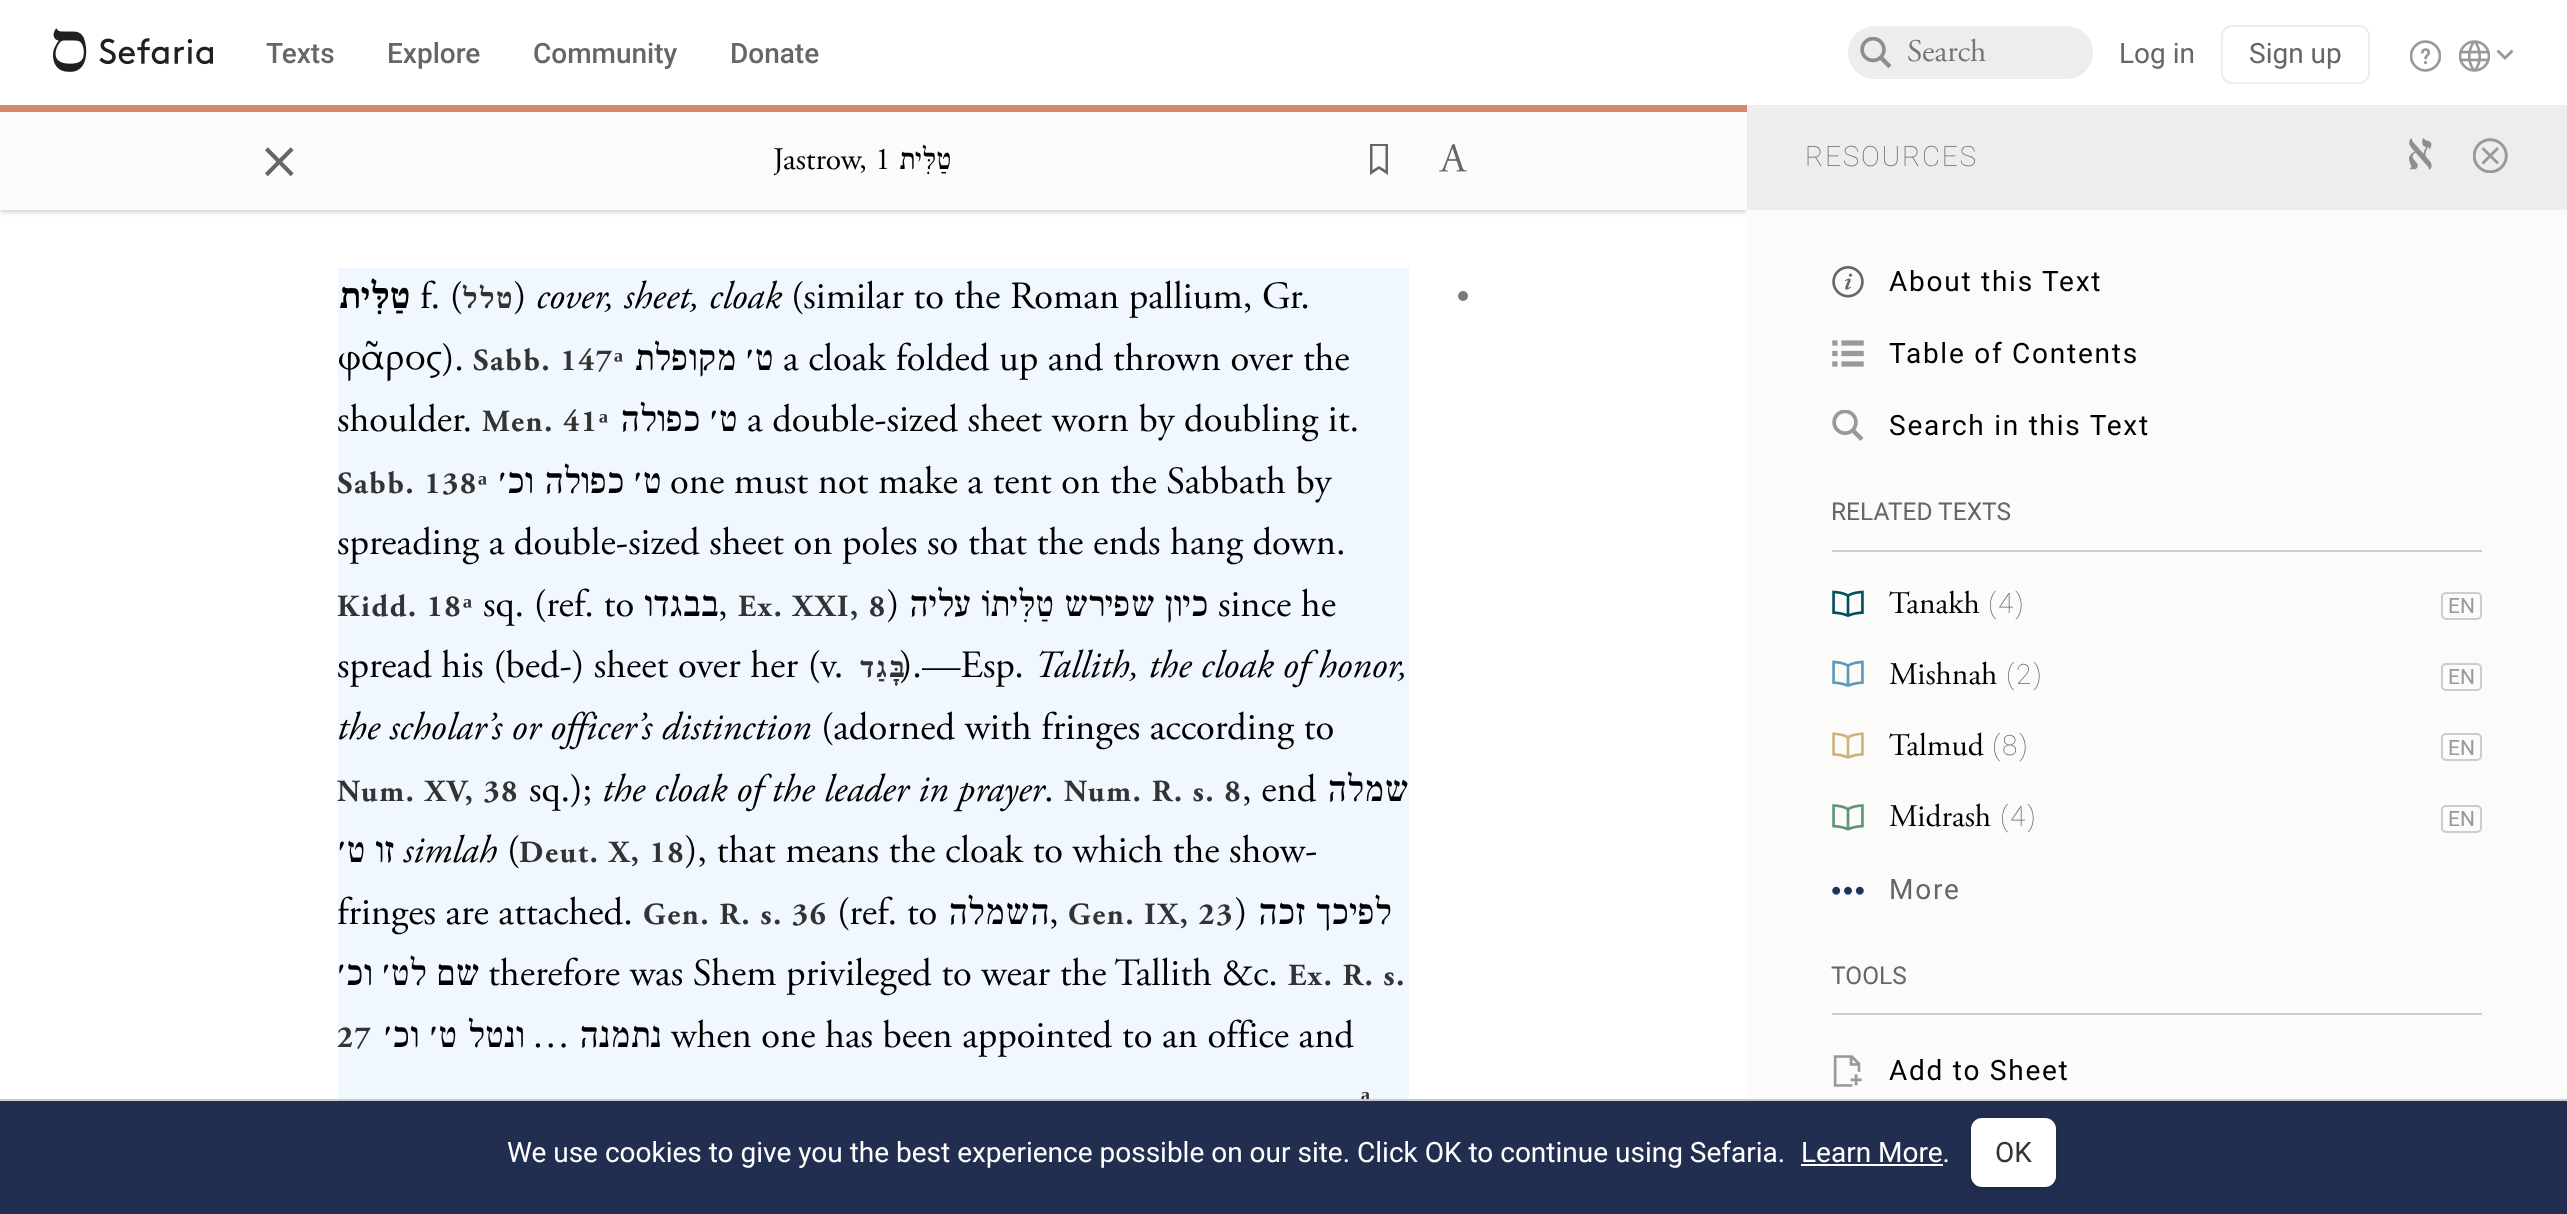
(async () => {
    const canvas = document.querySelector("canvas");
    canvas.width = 2567;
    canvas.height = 1214;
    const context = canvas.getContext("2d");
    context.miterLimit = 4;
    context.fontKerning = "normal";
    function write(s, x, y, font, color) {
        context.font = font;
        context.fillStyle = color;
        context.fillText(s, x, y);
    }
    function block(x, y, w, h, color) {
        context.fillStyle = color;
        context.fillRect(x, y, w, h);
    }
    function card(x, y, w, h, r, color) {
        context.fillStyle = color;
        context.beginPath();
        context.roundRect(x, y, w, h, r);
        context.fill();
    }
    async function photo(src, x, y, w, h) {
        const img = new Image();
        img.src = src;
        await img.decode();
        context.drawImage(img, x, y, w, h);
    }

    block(0, 0, 2567, 1214, "rgb(255, 255, 255)");
    await photo("media/1.png", 53, 28, 160, 44);
    write("Texts", 266, 63, "500 28px Roboto", "rgb(102, 102, 102)");
    write("Explore", 387, 63, "500 28px Roboto", "rgb(102, 102, 102)");
    write("Community", 533, 63, "500 28px Roboto", "rgb(102, 102, 102)");
    write("Donate", 730, 63, "500 28px Roboto", "rgb(102, 102, 102)");
    card(1848, 26, 245, 53, 26.5, "rgb(237, 237, 236)");
    await photo("media/2.png", 1860, 37, 32, 31);
    write("Search", 1907, 61, "31.5px Adobe Garamond", "rgb(117, 117, 117)");
    write("Log in", 2119, 63, "28px Roboto", "rgb(102, 102, 102)");
    context.beginPath();
    context.roundRect(2222, 26, 147, 57, 10);
    context.strokeStyle = "rgb(237, 237, 236)";
    context.lineWidth = 2;
    context.stroke();
    write("Sign up", 2249, 63, "28px Roboto", "rgb(102, 102, 102)");
    await photo("media/3.png", 2410, 40, 31, 32);
    await photo("media/4.png", 2459, 40, 31, 32);
    context.fillStyle = "rgb(153, 153, 153)";
    context.beginPath();
    context.moveTo(2511.5, 49.5);
    context.lineTo(2513.5, 51.5);
    context.lineTo(2505, 60);
    context.lineTo(2496.5, 51.5);
    context.lineTo(2498.5, 49.5);
    context.lineTo(2505, 56);
    context.closePath();
    context.fill();
    block(1747, 210, 820, 889, "rgb(251, 251, 250)");
    context.save();
    context.beginPath();
    context.rect(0, 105, 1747, 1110);
    context.clip();
    context.fillStyle = "rgba(0, 0, 0, 0.2)";
    context.filter = "blur(2.5px)";
    context.beginPath();
    context.rect(0, 107, 1747, 105);
    context.fill();
    context.filter = "none";
    context.restore();
    block(0, 105, 1747, 7, "rgb(212, 137, 108)");
    block(0, 112, 1747, 98, "rgb(251, 251, 250)");
    write("×", 260, 177, "77px Adobe Garamond", "rgb(102, 102, 102)");
    context.save();
    context.beginPath();
    context.rect(774, 142, 178, 37);
    context.clip();
    write("Jastrow,", 773, 169, "31.5px Adobe Garamond", "rgb(0, 0, 0)");
    context.restore();
    write("1", 875, 169, "31.5px Adobe Garamond", "rgb(0, 0, 0)");
    context.direction = "rtl";
    write("טַלִּית", 951, 169, "500 31.5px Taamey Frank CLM", "rgb(0, 0, 0)");
    context.save();
    context.beginPath();
    context.rect(1363, 144, 32, 31);
    context.clip();
    context.fillStyle = "rgb(102, 102, 102)";
    context.beginPath();
    context.moveTo(1385.5, 146);
    context.lineTo(1385.5, 170);
    context.lineTo(1379, 166);
    context.lineTo(1372.5, 170);
    context.lineTo(1372.5, 146);
    context.closePath();
    context.moveTo(1388, 143.5);
    context.lineTo(1370, 143.5);
    context.lineTo(1370, 175);
    context.lineTo(1379, 169);
    context.lineTo(1388, 175);
    context.closePath();
    context.fill();
    context.restore();
    await photo("media/5.png", 1439, 144, 28, 28);
    block(338, 268, 1071, 831, "rgb(240, 247, 255)");
    write("טַלִּית", 410, 308, "bold 38.5px Taamey Frank CLM", "rgb(0, 0, 0)");
    context.direction = "ltr";
    write("f. (", 420, 308, "38.5px Adobe Garamond", "rgb(0, 0, 0)");
    context.letterSpacing = "1.75px";
    context.direction = "rtl";
    write("טלל", 514, 308, "bold 30.75px Taamey Frank CLM", "rgb(51, 51, 51)");
    context.letterSpacing = "0px";
    context.direction = "ltr";
    write(")", 514, 308, "38.5px Adobe Garamond", "rgb(0, 0, 0)");
    write("cover, sheet, cloak", 536, 308, "italic 38.5px Adobe Garamond", "rgb(0, 0, 0)");
    write("(similar to the Roman pallium, Gr.", 791, 308, "38.5px Adobe Garamond", "rgb(0, 0, 0)");
    await photo("media/6.png", 339, 340, 103, 42);
    write(").", 442, 370, "38.5px Adobe Garamond", "rgb(0, 0, 0)");
    context.letterSpacing = "1.75px";
    write("Sabb. 147", 473, 370, "bold 30.75px Adobe Garamond", "rgb(51, 51, 51)");
    write("ᵃ", 614, 370, "bold 30.75px Liberation Serif", "rgb(51, 51, 51)");
    context.letterSpacing = "0px";
    context.wordSpacing = "-3px";
    context.direction = "rtl";
    write("ט׳ מקופלת", 773, 370, "500 38.5px Taamey Frank CLM", "rgb(0, 0, 0)");
    context.wordSpacing = "0px";
    context.direction = "ltr";
    write("a cloak folded up and thrown over the", 783, 370, "38.5px Adobe Garamond", "rgb(0, 0, 0)");
    write("shoulder.", 337, 431, "38.5px Adobe Garamond", "rgb(0, 0, 0)");
    context.letterSpacing = "1.75px";
    write("Men. 41", 482, 431, "bold 30.75px Adobe Garamond", "rgb(51, 51, 51)");
    write("ᵃ", 599, 431, "bold 30.75px Liberation Serif", "rgb(51, 51, 51)");
    context.letterSpacing = "0px";
    context.wordSpacing = "-3px";
    context.direction = "rtl";
    write("ט׳ כפולה", 737, 431, "500 38.5px Taamey Frank CLM", "rgb(0, 0, 0)");
    context.wordSpacing = "0px";
    context.direction = "ltr";
    write("a double-sized sheet worn by doubling it.", 747, 431, "38.5px Adobe Garamond", "rgb(0, 0, 0)");
    context.letterSpacing = "1.75px";
    write("Sabb. 138", 337, 493, "bold 30.75px Adobe Garamond", "rgb(51, 51, 51)");
    write("ᵃ", 478, 493, "bold 30.75px Liberation Serif", "rgb(51, 51, 51)");
    context.letterSpacing = "0px";
    context.wordSpacing = "-3px";
    context.direction = "rtl";
    write("ט׳ כפולה וכ׳", 661, 493, "500 38.5px Taamey Frank CLM", "rgb(0, 0, 0)");
    context.wordSpacing = "0px";
    context.direction = "ltr";
    write("one must not make a tent on the Sabbath by", 670, 493, "38.5px Adobe Garamond", "rgb(0, 0, 0)");
    write("spreading a double-sized sheet on poles so that the ends hang down.", 337, 554, "38.5px Adobe Garamond", "rgb(0, 0, 0)");
    context.letterSpacing = "1.75px";
    write("Kidd. 18", 337, 616, "bold 30.75px Adobe Garamond", "rgb(51, 51, 51)");
    write("ᵃ", 463, 616, "bold 30.75px Liberation Serif", "rgb(51, 51, 51)");
    context.letterSpacing = "0px";
    write("sq. (ref. to", 483, 616, "38.5px Adobe Garamond", "rgb(0, 0, 0)");
    context.direction = "rtl";
    write("בבגדו", 718, 616, "500 38.5px Taamey Frank CLM", "rgb(0, 0, 0)");
    context.letterSpacing = "1.75px";
    context.direction = "ltr";
    write("Ex. XXI, 8", 738, 616, "bold 30.75px Adobe Garamond", "rgb(51, 51, 51)");
    context.letterSpacing = "0px";
    write(")", 887, 616, "38.5px Adobe Garamond", "rgb(0, 0, 0)");
    context.wordSpacing = "-3px";
    context.direction = "rtl";
    write("כיון שפירש טַלִּיתוֹ עליה", 1208, 616, "500 38.5px Taamey Frank CLM", "rgb(0, 0, 0)");
    context.wordSpacing = "0px";
    context.direction = "ltr";
    write("since he", 1218, 616, "38.5px Adobe Garamond", "rgb(0, 0, 0)");
    write(",", 718, 616, "38.5px Adobe Garamond", "rgb(0, 0, 0)");
    write("spread his (bed-) sheet over her (v.", 337, 677, "38.5px Adobe Garamond", "rgb(0, 0, 0)");
    context.letterSpacing = "1.75px";
    context.direction = "rtl";
    write("בָּגַד", 906, 677, "bold 30.75px Taamey Frank CLM", "rgb(51, 51, 51)");
    context.letterSpacing = "0px";
    context.direction = "ltr";
    write(").—Esp.", 900, 677, "38.5px Adobe Garamond", "rgb(0, 0, 0)");
    write("Tallith, the cloak of honor,", 1034, 677, "italic 38.5px Adobe Garamond", "rgb(0, 0, 0)");
    write("the scholar’s or officer’s distinction", 337, 739, "italic 38.5px Adobe Garamond", "rgb(0, 0, 0)");
    write("(adorned with fringes according to", 821, 739, "38.5px Adobe Garamond", "rgb(0, 0, 0)");
    context.letterSpacing = "1.75px";
    write("Num. XV, 38", 337, 801, "bold 30.75px Adobe Garamond", "rgb(51, 51, 51)");
    context.letterSpacing = "0px";
    write("sq.);", 529, 801, "38.5px Adobe Garamond", "rgb(0, 0, 0)");
    write("the cloak of the leader in prayer", 602, 801, "italic 38.5px Adobe Garamond", "rgb(0, 0, 0)");
    write(".", 1044, 801, "38.5px Adobe Garamond", "rgb(0, 0, 0)");
    context.letterSpacing = "1.75px";
    write("Num. R. s. 8", 1064, 801, "bold 30.75px Adobe Garamond", "rgb(51, 51, 51)");
    context.letterSpacing = "0px";
    write(", end", 1242, 801, "38.5px Adobe Garamond", "rgb(0, 0, 0)");
    context.direction = "rtl";
    write("שמלה", 1408, 801, "500 38.5px Taamey Frank CLM", "rgb(0, 0, 0)");
    context.wordSpacing = "-3px";
    write("זו ט׳", 394, 862, "500 38.5px Taamey Frank CLM", "rgb(0, 0, 0)");
    context.wordSpacing = "0px";
    context.direction = "ltr";
    write("simlah", 403, 862, "italic 38.5px Adobe Garamond", "rgb(0, 0, 0)");
    write("(", 507, 862, "38.5px Adobe Garamond", "rgb(0, 0, 0)");
    context.letterSpacing = "1.75px";
    write("Deut. X, 18", 519, 862, "bold 30.75px Adobe Garamond", "rgb(51, 51, 51)");
    context.letterSpacing = "0px";
    write("), that means the cloak to which the show-", 685, 862, "38.5px Adobe Garamond", "rgb(0, 0, 0)");
    write("fringes are attached.", 337, 924, "38.5px Adobe Garamond", "rgb(0, 0, 0)");
    context.letterSpacing = "1.75px";
    write("Gen. R. s. 36", 643, 924, "bold 30.75px Adobe Garamond", "rgb(51, 51, 51)");
    context.letterSpacing = "0px";
    write("(ref. to", 837, 924, "38.5px Adobe Garamond", "rgb(0, 0, 0)");
    context.direction = "rtl";
    write("השמלה", 1049, 924, "500 38.5px Taamey Frank CLM", "rgb(0, 0, 0)");
    context.direction = "ltr";
    write(",", 1049, 924, "38.5px Adobe Garamond", "rgb(0, 0, 0)");
    context.letterSpacing = "1.75px";
    write("Gen. IX, 23", 1068, 924, "bold 30.75px Adobe Garamond", "rgb(51, 51, 51)");
    context.letterSpacing = "0px";
    write(")", 1235, 924, "38.5px Adobe Garamond", "rgb(0, 0, 0)");
    context.wordSpacing = "-3px";
    context.direction = "rtl";
    write("לפיכך זכה", 1391, 924, "500 38.5px Taamey Frank CLM", "rgb(0, 0, 0)");
    write("שם לט׳ וכ׳", 479, 985, "500 38.5px Taamey Frank CLM", "rgb(0, 0, 0)");
    context.wordSpacing = "0px";
    context.direction = "ltr";
    write("therefore was Shem privileged to wear the Tallith &c.", 488, 985, "38.5px Adobe Garamond", "rgb(0, 0, 0)");
    context.letterSpacing = "1.75px";
    write("Ex. R. s.", 1288, 985, "bold 30.75px Adobe Garamond", "rgb(51, 51, 51)");
    write("27", 337, 1047, "bold 30.75px Adobe Garamond", "rgb(51, 51, 51)");
    context.letterSpacing = "0px";
    context.wordSpacing = "-2px";
    context.direction = "rtl";
    write("ונטל ט׳ וכ׳", 524, 1047, "500 38.5px Taamey Frank CLM", "rgb(0, 0, 0)");
    context.wordSpacing = "0px";
    write("…", 570, 1047, "38.5px Adobe Garamond", "rgb(0, 0, 0)");
    write("נתמנה", 661, 1047, "500 38.5px Taamey Frank CLM", "rgb(0, 0, 0)");
    context.direction = "ltr";
    write("when one has been appointed to an office and", 671, 1047, "38.5px Adobe Garamond", "rgb(0, 0, 0)");
    context.letterSpacing = "1.75px";
    write("ᵃ", 1361, 1109, "bold 30.75px Liberation Serif", "rgb(51, 51, 51)");
    context.fillStyle = "rgb(122, 122, 122)";
    context.beginPath();
    context.arc(1463, 296, 5, 0, Math.PI * 2);
    context.fill();
    block(1747, 105, 820, 105, "rgb(237, 237, 237)");
    write("RESOURCES", 1805, 166, "100 28px Roboto", "rgb(102, 102, 102)");
    await photo("media/7.png", 2409, 138, 23, 32);
    await photo("media/8.png", 2473, 138, 35, 35);
    await photo("media/9.png", 1832, 266, 32, 32);
    write("About this Text", 1889, 291, "28px Roboto", "rgb(0, 0, 0)");
    await photo("media/10.png", 1832, 340, 32, 27);
    write("Table of Contents", 1889, 363, "28px Roboto", "rgb(0, 0, 0)");
    await photo("media/11.png", 1832, 410, 32, 31);
    write("Search in this Text", 1889, 435, "28px Roboto", "rgb(0, 0, 0)");
    block(1832, 550, 650, 2, "rgb(204, 204, 204)");
    context.letterSpacing = "0px";
    write("RELATED TEXTS", 1831, 520, "24.5px Roboto", "rgb(102, 102, 102)");
    await photo("media/12.png", 1832, 590, 32, 27);
    write("Tanakh", 1889, 613, "31.5px Adobe Garamond", "rgb(0, 0, 0)");
    context.letterSpacing = "1.75px";
    write("(4)", 1988, 613, "100 28px Roboto", "rgb(102, 102, 102)");
    context.beginPath();
    context.roundRect(2442, 593, 39, 26, 4);
    context.strokeStyle = "rgb(204, 204, 204)";
    context.stroke();
    context.letterSpacing = "0px";
    write("EN", 2448, 613, "21px Roboto", "rgb(153, 153, 153)");
    await photo("media/13.png", 1832, 660, 32, 27);
    write("Mishnah", 1889, 684, "31.5px Adobe Garamond", "rgb(0, 0, 0)");
    context.letterSpacing = "1.75px";
    write("(2)", 2006, 684, "100 28px Roboto", "rgb(102, 102, 102)");
    context.beginPath();
    context.roundRect(2442, 664, 39, 26, 4);
    context.stroke();
    context.letterSpacing = "0px";
    write("EN", 2448, 684, "21px Roboto", "rgb(153, 153, 153)");
    await photo("media/14.png", 1832, 732, 32, 27);
    write("Talmud", 1889, 755, "31.5px Adobe Garamond", "rgb(0, 0, 0)");
    context.letterSpacing = "1.75px";
    write("(8)", 1992, 755, "100 28px Roboto", "rgb(102, 102, 102)");
    context.beginPath();
    context.roundRect(2442, 734, 39, 26, 4);
    context.stroke();
    context.letterSpacing = "0px";
    write("EN", 2448, 755, "21px Roboto", "rgb(153, 153, 153)");
    await photo("media/15.png", 1832, 804, 32, 27);
    write("Midrash", 1889, 826, "31.5px Adobe Garamond", "rgb(0, 0, 0)");
    context.letterSpacing = "1.75px";
    write("(4)", 2000, 826, "100 28px Roboto", "rgb(102, 102, 102)");
    context.beginPath();
    context.roundRect(2442, 806, 39, 26, 4);
    context.stroke();
    context.letterSpacing = "0px";
    write("EN", 2448, 826, "21px Roboto", "rgb(153, 153, 153)");
    await photo("media/16.png", 1832, 886, 32, 9);
    context.letterSpacing = "1.75px";
    write("More", 1889, 899, "28px Roboto", "rgb(102, 102, 102)");
    block(1832, 1013, 650, 2, "rgb(204, 204, 204)");
    context.letterSpacing = "0px";
    write("TOOLS", 1831, 984, "24.5px Roboto", "rgb(102, 102, 102)");
    await photo("media/17.png", 1833, 1055, 29, 32);
    context.letterSpacing = "1.75px";
    write("Add to Sheet", 1889, 1080, "28px Roboto", "rgb(0, 0, 0)");
    block(0, 1101, 2567, 113, "rgb(33, 46, 80)");
    block(0, 1099, 2567, 2, "rgb(204, 204, 204)");
    context.letterSpacing = "0px";
    write("We use cookies to give you the best experience possible on our site. Click OK to continue using Sefaria.", 507, 1162, "28px Roboto", "rgb(255, 255, 255)");
    write("Learn More.", 1801, 1162, "28px Roboto", "rgb(255, 255, 255)");
    block(1801, 1164, 142, 2, "rgb(255, 255, 255)");
    context.fillStyle = "rgba(0, 0, 0, 0.25)";
    context.filter = "blur(2.5px)";
    context.beginPath();
    context.roundRect(1971, 1120, 85, 68, 11);
    context.fill();
    context.filter = "none";
    card(1971, 1118, 85, 69, 11, "rgb(255, 255, 255)");
    write("OK", 1995, 1162, "28px Roboto", "rgb(51, 51, 51)");
})();
